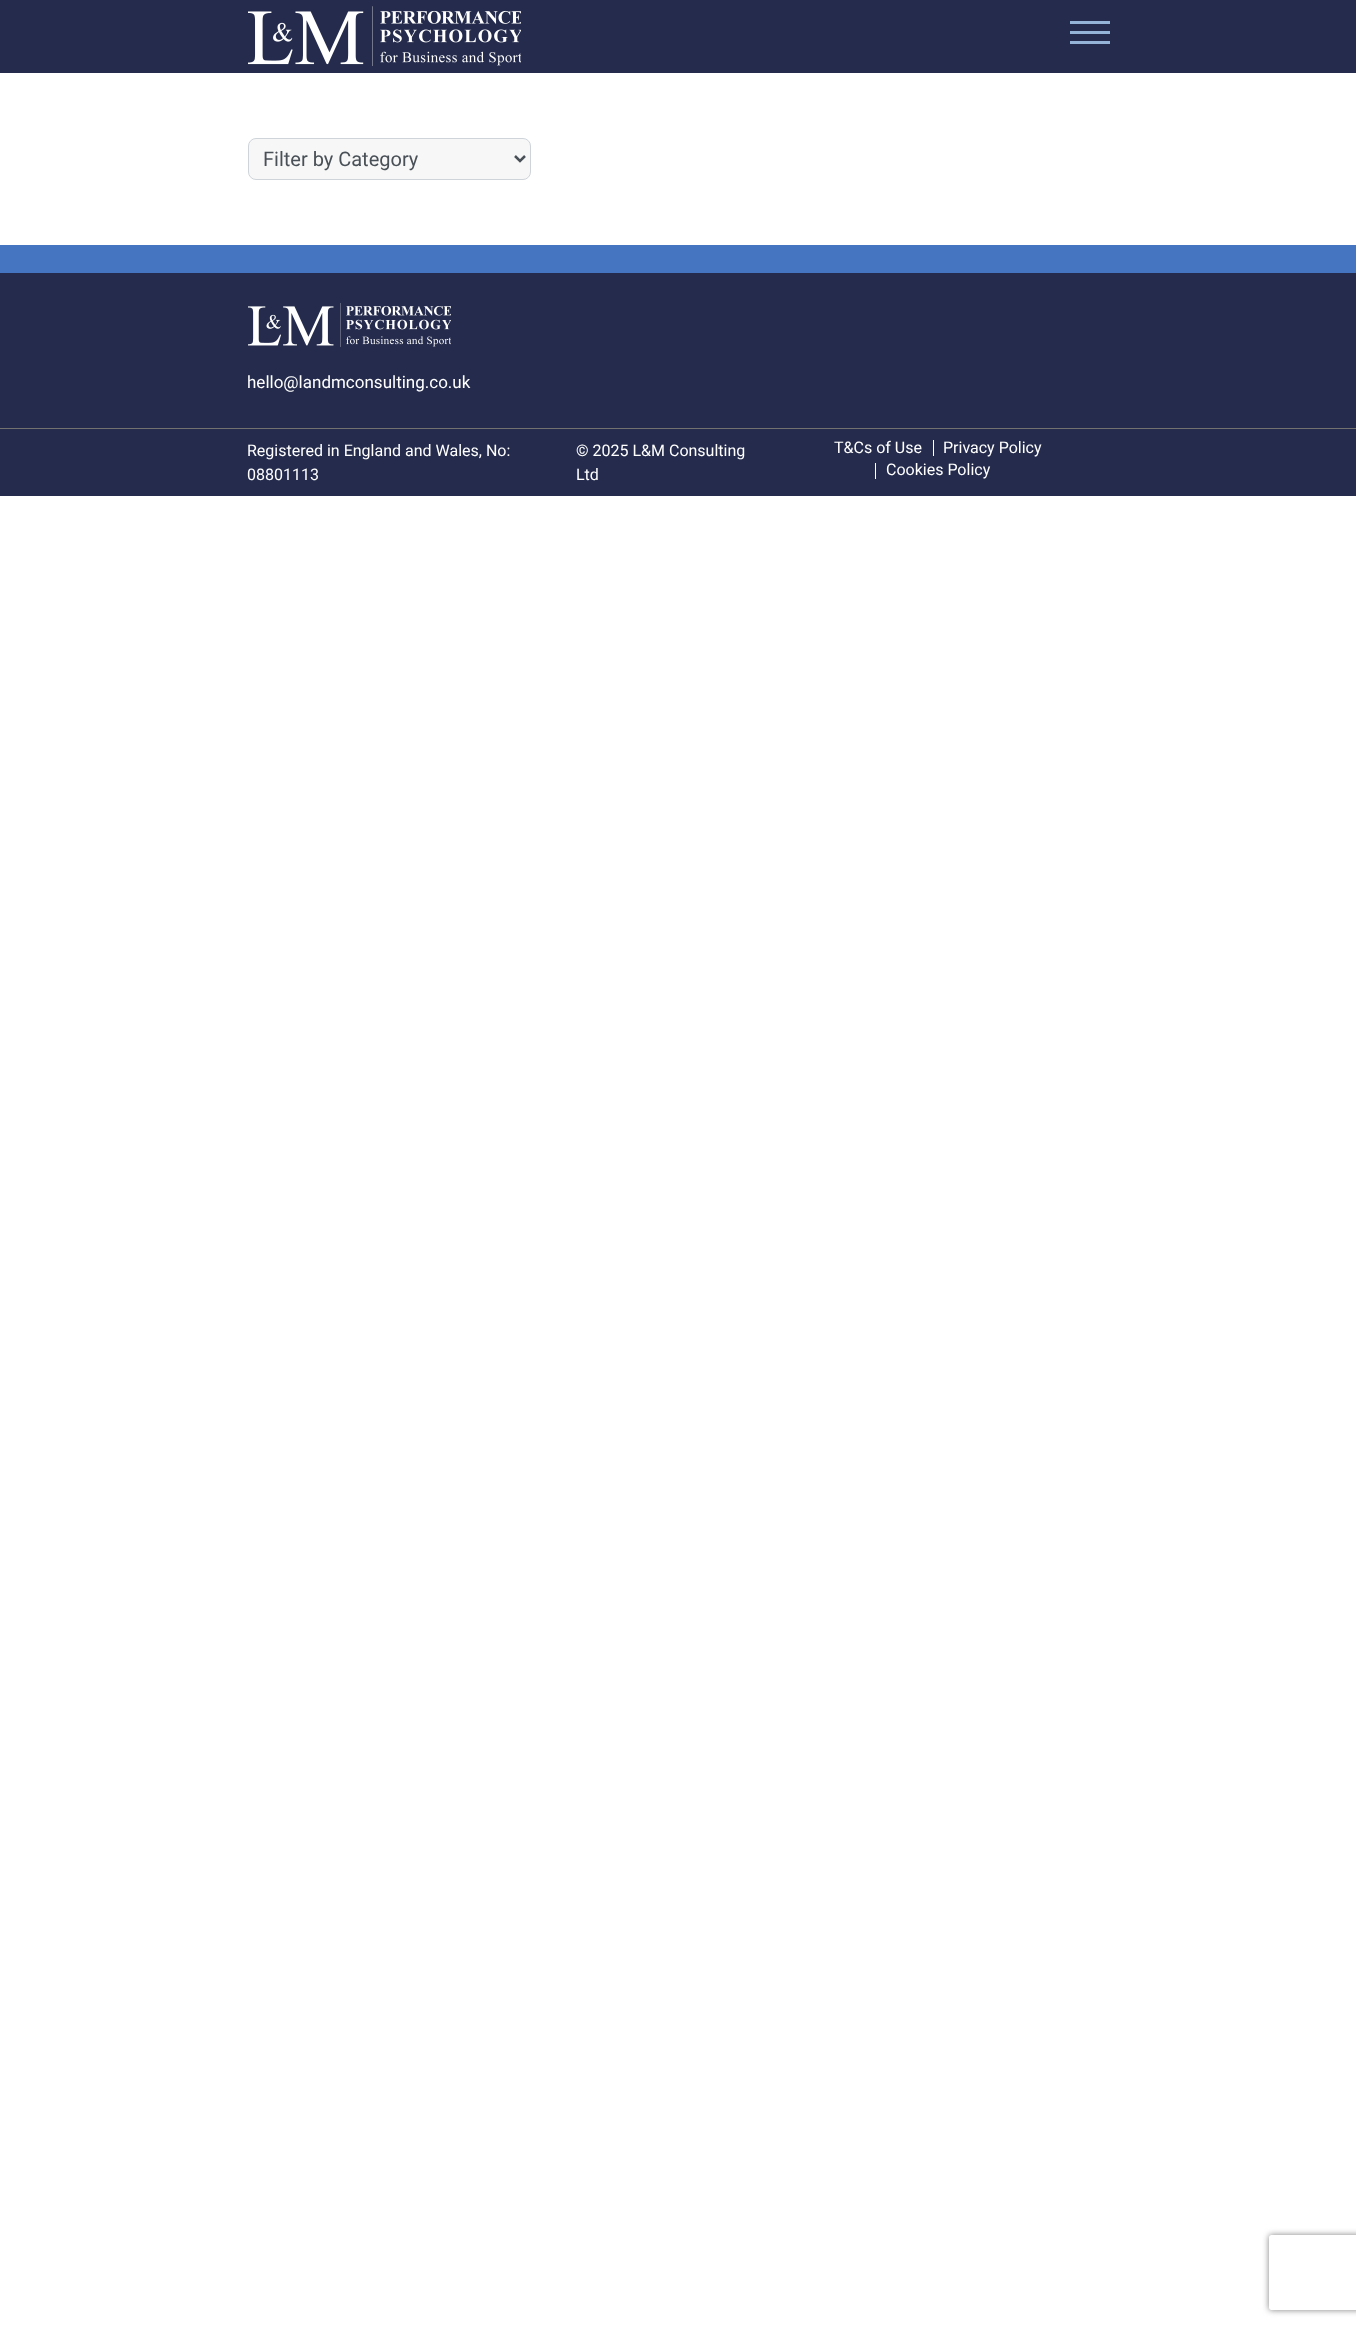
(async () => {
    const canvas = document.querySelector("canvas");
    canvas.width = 1356;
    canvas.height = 2327;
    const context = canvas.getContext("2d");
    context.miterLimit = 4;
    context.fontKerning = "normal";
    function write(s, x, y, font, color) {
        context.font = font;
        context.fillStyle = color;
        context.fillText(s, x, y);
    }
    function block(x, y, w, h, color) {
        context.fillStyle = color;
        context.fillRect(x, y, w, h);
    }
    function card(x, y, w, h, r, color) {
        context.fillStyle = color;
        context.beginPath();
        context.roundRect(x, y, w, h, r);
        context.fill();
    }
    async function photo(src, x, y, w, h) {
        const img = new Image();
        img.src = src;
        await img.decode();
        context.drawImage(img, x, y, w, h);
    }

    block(0, 0, 1356, 2327, "rgb(255, 255, 255)");
    block(0, 0, 1356, 73, "rgb(36, 43, 76)");
    await photo("media/1.png", 248, 6, 273, 60);
    block(1070, 31, 40, 3, "rgb(149, 179, 215)");
    block(1070, 21, 40, 3, "rgb(149, 179, 215)");
    block(1070, 41, 40, 3, "rgb(149, 179, 215)");
    card(249, 139, 281, 40, 6, "rgb(247, 247, 247)");
    context.beginPath();
    context.roundRect(248.5, 138.5, 282, 41, 7.5);
    context.strokeStyle = "rgb(206, 212, 218)";
    context.stroke();
    context.beginPath();
    context.moveTo(515, 156);
    context.lineTo(520, 161);
    context.lineTo(525, 156);
    context.strokeStyle = "rgb(73, 80, 87)";
    context.lineWidth = 2.5;
    context.stroke();
    write("Filter by Category", 263, 166, "20px Roboto", "rgb(73, 80, 87)");
    block(0, 273, 1356, 223, "rgb(36, 43, 76)");
    block(0, 245, 1356, 28, "rgb(69, 117, 193)");
    await photo("media/2.png", 248, 303, 203, 44);
    write("hello@landmconsulting.co.uk", 247, 388, "17px Roboto", "rgb(255, 255, 255)");
    block(0, 428, 1356, 1, "rgb(115, 113, 112)");
    write("Registered in England and Wales, No:", 247, 456, "16px Roboto", "rgb(255, 255, 255)");
    write("08801113", 247, 480, "16px Roboto", "rgb(255, 255, 255)");
    write("© 2025 L&M Consulting", 576, 456, "16px Roboto", "rgb(255, 255, 255)");
    write("Ltd", 576, 480, "16px Roboto", "rgb(255, 255, 255)");
    write("T&Cs of Use", 834, 453, "16px Roboto", "rgb(255, 255, 255)");
    block(933, 440, 1, 16, "rgb(255, 255, 255)");
    write("Privacy Policy", 943, 453, "16px Roboto", "rgb(255, 255, 255)");
    block(875, 463, 1, 16, "rgb(255, 255, 255)");
    write("Cookies Policy", 886, 475, "16px Roboto", "rgb(255, 255, 255)");
    context.save();
    context.beginPath();
    context.moveTo(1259, 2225);
    context.lineTo(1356, 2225);
    context.lineTo(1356, 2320);
    context.lineTo(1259, 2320);
    context.closePath();
    context.moveTo(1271.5, 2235);
    context.lineTo(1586.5, 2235);
    context.bezierCurveTo(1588, 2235, 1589, 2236, 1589, 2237.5);
    context.lineTo(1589, 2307.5);
    context.bezierCurveTo(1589, 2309, 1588, 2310, 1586.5, 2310);
    context.lineTo(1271.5, 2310);
    context.bezierCurveTo(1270, 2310, 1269, 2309, 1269, 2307.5);
    context.lineTo(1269, 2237.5);
    context.bezierCurveTo(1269, 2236, 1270, 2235, 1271.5, 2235);
    context.closePath();
    context.clip("evenodd");
    context.fillStyle = "rgb(128, 128, 128)";
    context.filter = "blur(3px)";
    context.beginPath();
    context.roundRect(1269, 2235, 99, 75, 2.5);
    context.fill();
    context.filter = "none";
    context.restore();
})();
